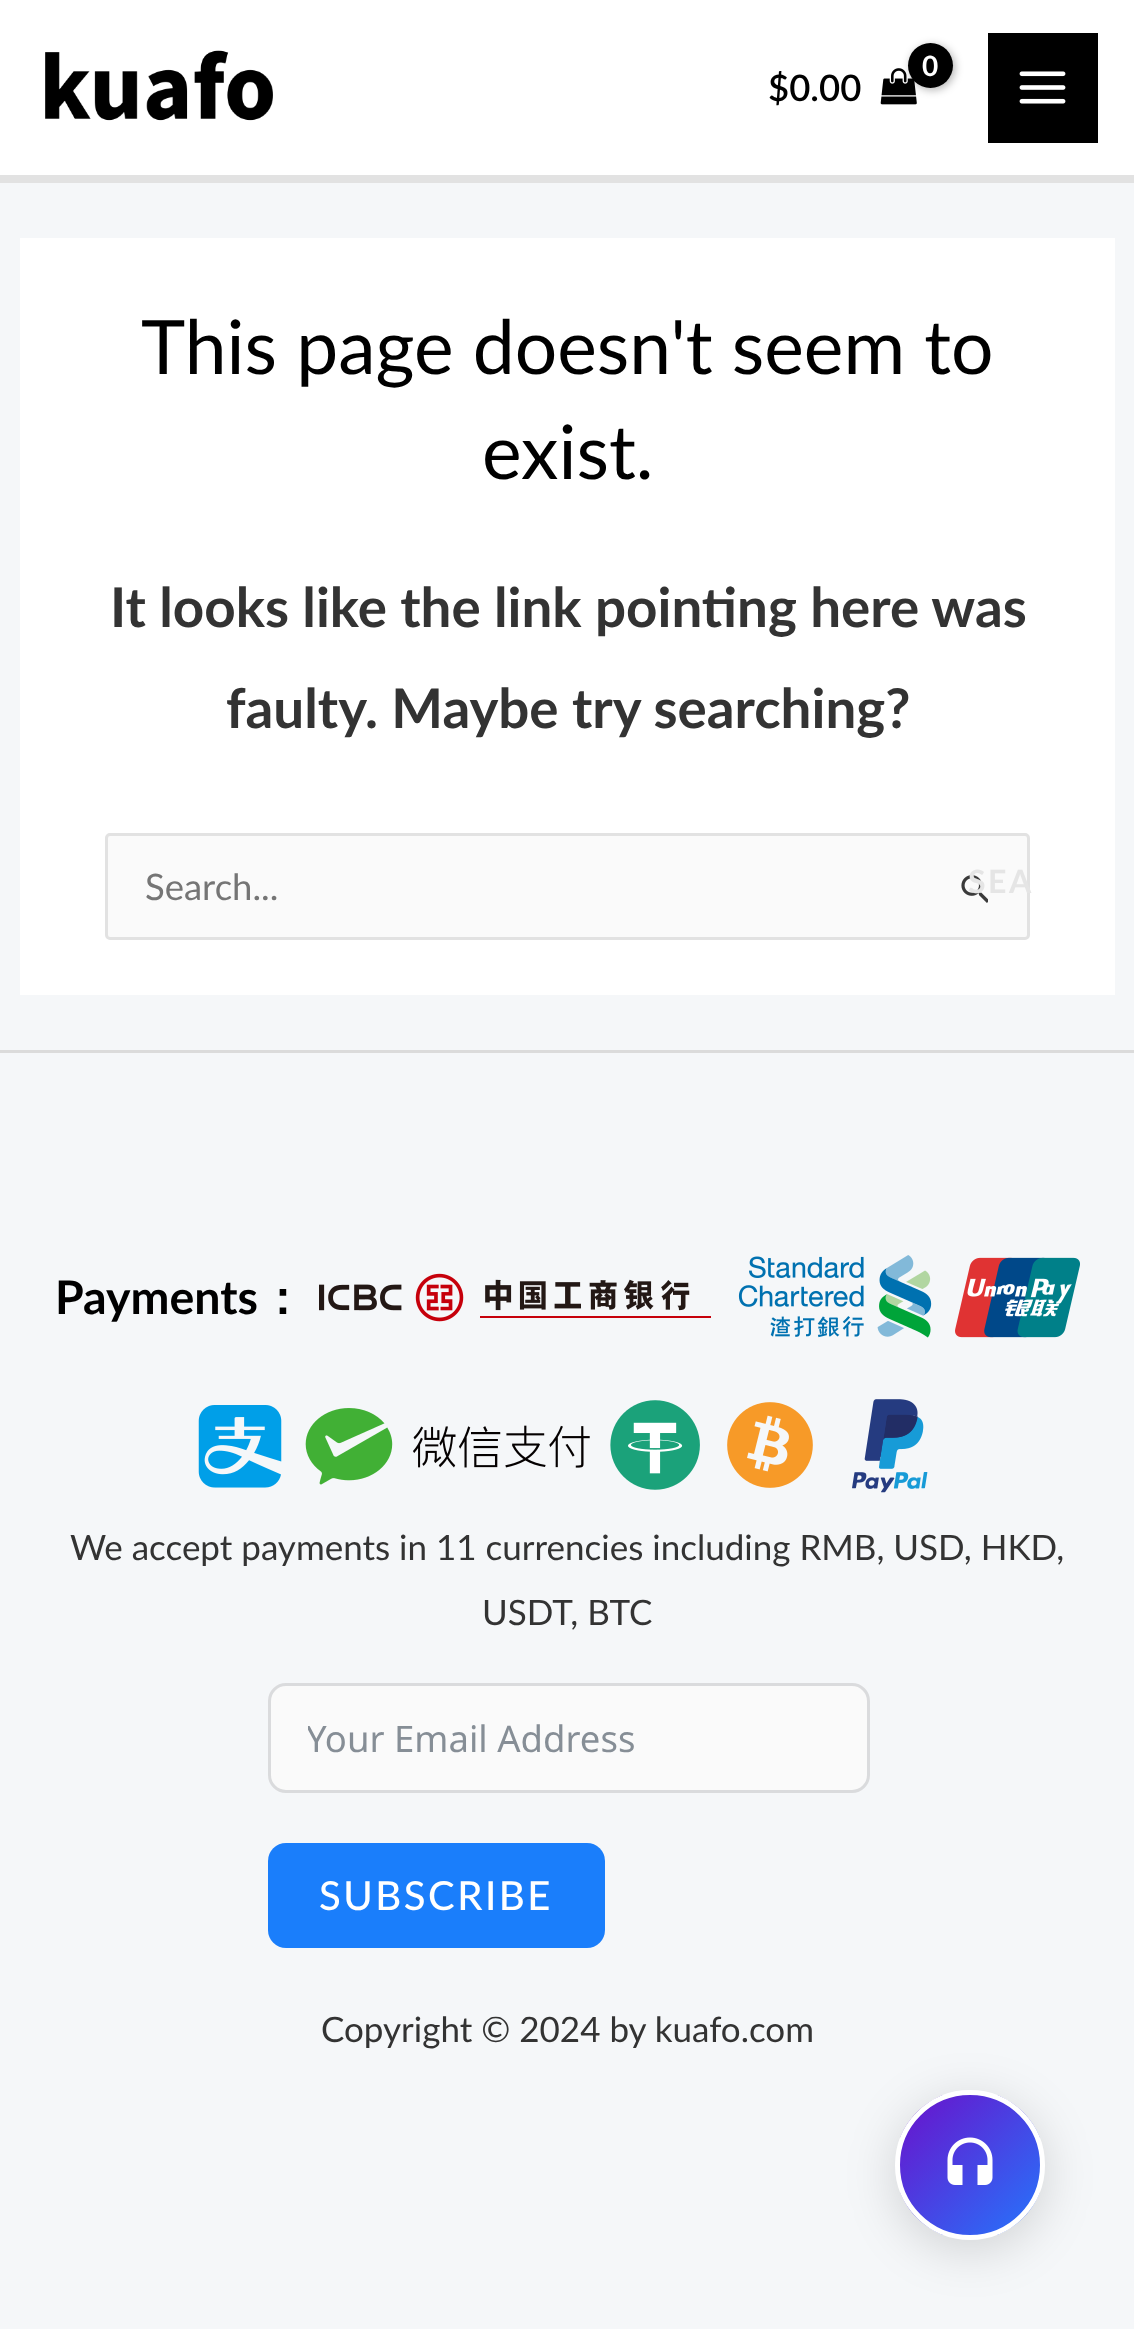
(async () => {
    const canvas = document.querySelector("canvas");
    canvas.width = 1134;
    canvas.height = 2329;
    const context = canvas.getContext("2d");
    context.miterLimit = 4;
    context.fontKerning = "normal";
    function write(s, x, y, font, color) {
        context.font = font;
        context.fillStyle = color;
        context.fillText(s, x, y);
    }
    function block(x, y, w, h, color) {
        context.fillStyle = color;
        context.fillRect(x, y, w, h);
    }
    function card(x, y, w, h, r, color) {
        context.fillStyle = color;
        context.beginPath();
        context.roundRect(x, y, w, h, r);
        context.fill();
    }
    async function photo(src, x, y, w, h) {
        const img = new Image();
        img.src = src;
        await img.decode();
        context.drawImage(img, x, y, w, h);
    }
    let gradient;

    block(0, 0, 1134, 2329, "rgb(245, 247, 249)");
    block(0, 0, 1134, 175, "rgb(255, 255, 255)");
    block(0, 175, 1134, 8, "rgb(226, 226, 226)");
    await photo("media/1.png", 45, 50, 228, 71);
    await photo("media/2.png", 880, 68, 37, 37);
    context.fillStyle = "rgba(0, 0, 0, 0.3)";
    context.filter = "blur(4px)";
    context.beginPath();
    context.roundRect(910, 45, 45, 45, 22.5);
    context.fill();
    context.filter = "none";
    context.fillStyle = "rgb(0, 0, 0)";
    context.beginPath();
    context.arc(930.5, 65.5, 22.5, 0, Math.PI * 2);
    context.fill();
    context.letterSpacing = "-1px";
    write("0", 922, 76, "bold 28px Lato", "rgb(255, 255, 255)");
    context.letterSpacing = "0px";
    write("$0.00", 768, 101, "600 36.5px Lato", "rgb(0, 0, 0)");
    block(988, 33, 110, 110, "rgb(0, 0, 0)");
    await photo("media/3.png", 1019, 71, 47, 33);
    block(20, 238, 1095, 757, "rgb(255, 255, 255)");
    write("This page doesn't seem to", 141, 374, "75px Lato", "rgb(0, 0, 0)");
    write("exist.", 482, 479, "75px Lato", "rgb(0, 0, 0)");
    write("It looks like the link pointing here was", 110, 627, "bold 54.75px Lato", "rgb(51, 51, 51)");
    write("faulty. Maybe try searching?", 226, 728, "bold 54.75px Lato", "rgb(51, 51, 51)");
    context.fillStyle = "rgb(250, 250, 250)";
    context.beginPath();
    context.roundRect(106.5, 834.5, 922, 104, 3.5);
    context.fill();
    context.strokeStyle = "rgb(226, 226, 226)";
    context.lineWidth = 3;
    context.stroke();
    write("Search...", 145, 900, "36.5px Lato", "rgb(117, 117, 117)");
    await photo("media/4.png", 961, 875, 27, 28);
    context.letterSpacing = "2.5px";
    write("SEA", 968, 893, "bold 32px Lato", "rgb(229, 229, 229)");
    block(0, 1050, 1134, 3, "rgb(219, 219, 219)");
    context.letterSpacing = "0px";
    write("Payments", 55, 1314, "bold 46.5px Lato", "rgb(0, 0, 0)");
    write("：", 259, 1314, "bold 46.5px WenQuanYi Zen Hei", "rgb(0, 0, 0)");
    await photo("media/5.png", 319, 1273, 392, 49);
    await photo("media/6.png", 738, 1255, 194, 83);
    await photo("media/7.png", 955, 1257, 125, 81);
    await photo("media/8.png", 198, 1405, 84, 83);
    await photo("media/9.png", 305, 1408, 285, 77);
    await photo("media/10.png", 610, 1400, 90, 90);
    await photo("media/11.png", 727, 1402, 86, 86);
    await photo("media/12.png", 852, 1399, 76, 94);
    write("We accept payments in 11 currencies including RMB, USD, HKD,", 70, 1560, "35px Lato", "rgb(51, 51, 51)");
    write("USDT, BTC", 482, 1625, "35px Lato", "rgb(51, 51, 51)");
    context.fillStyle = "rgb(250, 250, 250)";
    context.beginPath();
    context.roundRect(269.5, 1684.5, 599, 107, 16.5);
    context.fill();
    context.strokeStyle = "rgb(218, 219, 221)";
    context.stroke();
    context.save();
    context.beginPath();
    context.rect(308, 1713, 522, 50);
    context.clip();
    write("Your Email Address", 306, 1752, "36.5px Noto Sans", "rgb(134, 142, 150)");
    context.restore();
    card(268, 1843, 337, 105, 18, "rgb(26, 126, 251)");
    context.letterSpacing = "2.5px";
    write("SUBSCRIBE", 319, 1910, "500 40px Lato", "rgb(255, 255, 255)");
    context.letterSpacing = "0px";
    write("Copyright © 2024 by kuafo.com", 321, 2042, "35px Lato", "rgb(51, 51, 51)");
    context.fillStyle = "rgba(0, 0, 0, 0.15)";
    context.filter = "blur(25px)";
    context.beginPath();
    context.roundRect(895, 2100, 150, 150, 75);
    context.fill();
    context.filter = "none";
    context.save();
    context.beginPath();
    context.roundRect(895, 2090, 150, 150, 75);
    context.clip();
    gradient = context.createLinearGradient(900, 2095, 1040, 2235);
    gradient.addColorStop(0, "rgb(106, 17, 203)");
    gradient.addColorStop(1, "rgb(37, 117, 252)");
    context.fillStyle = gradient;
    context.fillRect(900, 2095, 140, 140);
    context.restore();
    context.beginPath();
    context.arc(970, 2165, 72.5, 0, Math.PI * 2);
    context.strokeStyle = "rgb(255, 255, 255)";
    context.lineWidth = 5;
    context.stroke();
    await photo("media/13.png", 947, 2137, 46, 48);
})();
